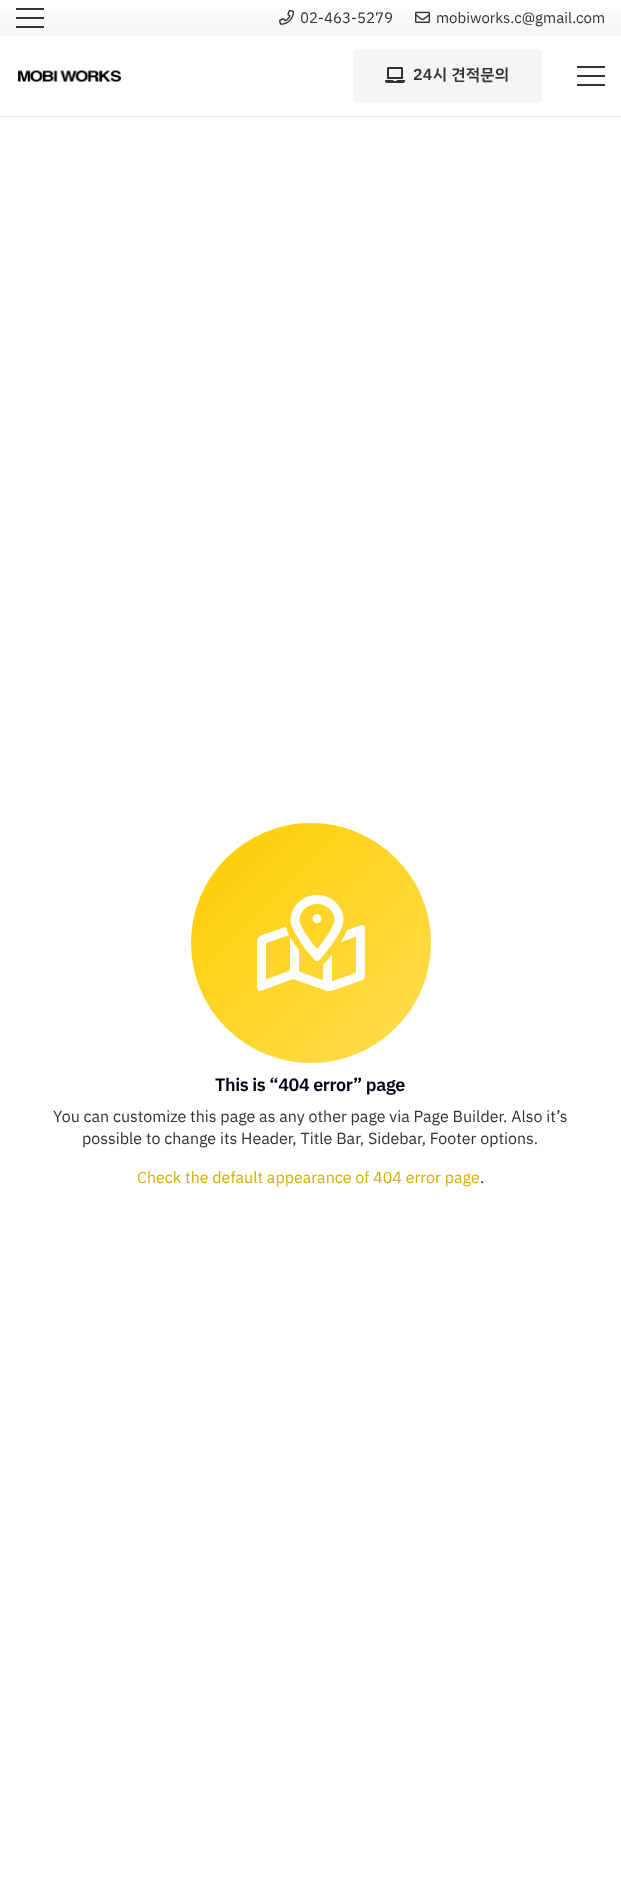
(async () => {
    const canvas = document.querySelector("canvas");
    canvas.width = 621;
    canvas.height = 1896;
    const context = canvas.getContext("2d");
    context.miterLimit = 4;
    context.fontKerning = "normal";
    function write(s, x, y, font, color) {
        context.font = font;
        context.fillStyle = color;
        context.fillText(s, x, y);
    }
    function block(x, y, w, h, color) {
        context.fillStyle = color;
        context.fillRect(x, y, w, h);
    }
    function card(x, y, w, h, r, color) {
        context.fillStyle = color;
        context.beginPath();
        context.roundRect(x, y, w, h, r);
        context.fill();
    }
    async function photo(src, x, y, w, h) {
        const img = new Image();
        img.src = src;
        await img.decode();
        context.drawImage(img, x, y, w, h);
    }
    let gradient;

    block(0, 0, 621, 1896, "rgb(255, 255, 255)");
    gradient = context.createLinearGradient(311, 36, 311, 0);
    gradient.addColorStop(0, "rgb(245, 245, 245)");
    gradient.addColorStop(1, "rgb(255, 255, 255)");
    context.fillStyle = gradient;
    context.fillRect(0, 9, 621, 27);
    block(16, 17, 28, 2, "rgb(51, 51, 51)");
    block(16, 8, 28, 2, "rgb(51, 51, 51)");
    block(16, 26, 28, 2, "rgb(51, 51, 51)");
    await photo("media/1.png", 279, 9, 15, 16);
    write("02-463-5279", 300, 23, "15px IBM Plex Sans KR", "rgb(51, 51, 51)");
    await photo("media/2.png", 415, 11, 15, 12);
    write("mobiworks.c@gmail.com", 436, 23, "15px IBM Plex Sans KR", "rgb(51, 51, 51)");
    block(0, 116, 621, 1, "rgb(235, 235, 235)");
    await photo("media/3.png", 18, 70, 104, 12);
    card(353, 49, 189, 54, 5, "rgb(245, 245, 245)");
    await photo("media/4.png", 385, 67, 20, 16);
    context.letterSpacing = "0.25px";
    write("24시 견적문의", 413, 80, "600 16px IBM Plex Sans KR", "rgb(51, 51, 51)");
    block(577, 75, 28, 2, "rgb(51, 51, 51)");
    block(577, 66, 28, 2, "rgb(51, 51, 51)");
    block(577, 84, 28, 2, "rgb(51, 51, 51)");
    gradient = context.createLinearGradient(191, 823, 431, 1063);
    gradient.addColorStop(0, "rgb(255, 205, 0)");
    gradient.addColorStop(1, "rgb(255, 221, 82)");
    context.fillStyle = gradient;
    context.beginPath();
    context.arc(311, 943, 120, 0, Math.PI * 2);
    context.fill();
    await photo("media/5.png", 257, 895, 108, 96);
    context.letterSpacing = "-0.4px";
    write("This is “404 error” page", 215, 1091, "600 18px IBM Plex Sans KR", "rgb(0, 0, 23)");
    context.letterSpacing = "0px";
    write("You can customize this page as any other page via Page Builder. Also it’s", 53, 1122, "16px IBM Plex Sans KR", "rgb(51, 51, 51)");
    write("possible to change its Header, Title Bar, Sidebar, Footer options.", 82, 1144, "16px IBM Plex Sans KR", "rgb(51, 51, 51)");
    write("Check the default appearance of 404 error page", 137, 1183, "16px IBM Plex Sans KR", "rgb(217, 174, 0)");
    write(".", 480, 1183, "16px IBM Plex Sans KR", "rgb(51, 51, 51)");
})();
